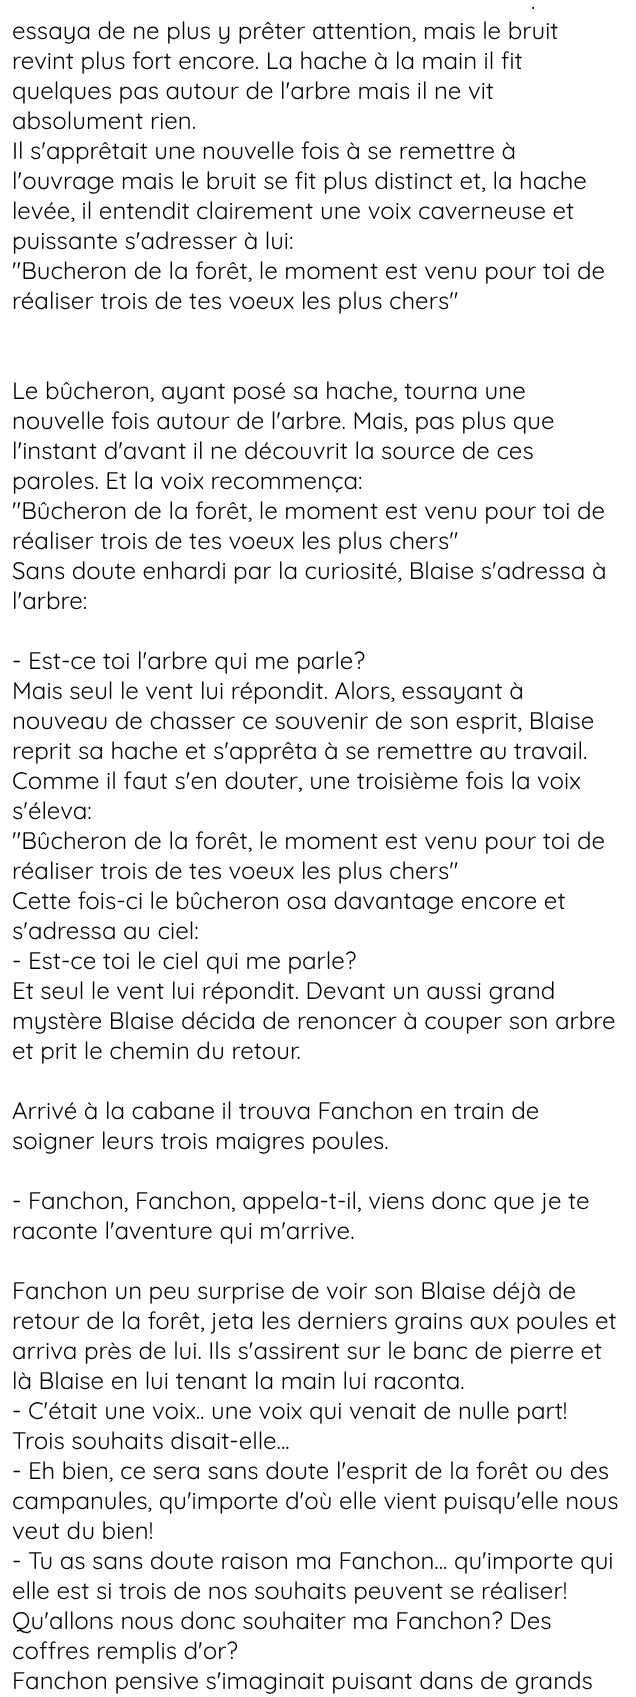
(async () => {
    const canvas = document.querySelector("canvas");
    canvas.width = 636;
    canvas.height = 1697;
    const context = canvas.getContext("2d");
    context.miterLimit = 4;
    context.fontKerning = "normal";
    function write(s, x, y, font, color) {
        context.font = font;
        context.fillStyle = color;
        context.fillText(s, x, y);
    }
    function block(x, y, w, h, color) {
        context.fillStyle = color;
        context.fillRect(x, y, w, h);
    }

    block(0, 0, 636, 1697, "rgb(255, 255, 255)");
    write(".", 531, 9, "300 24px Quicksand", "rgb(0, 0, 0)");
    write("essaya de ne plus y prêter attention, mais le bruit", 12, 39, "300 24px Quicksand", "rgb(0, 0, 0)");
    write("revint plus fort encore. La hache à la main il fit", 12, 69, "300 24px Quicksand", "rgb(0, 0, 0)");
    write("quelques pas autour de l'arbre mais il ne vit", 12, 99, "300 24px Quicksand", "rgb(0, 0, 0)");
    write("absolument rien.", 12, 129, "300 24px Quicksand", "rgb(0, 0, 0)");
    write("Il s'apprêtait une nouvelle fois à se remettre à", 12, 159, "300 24px Quicksand", "rgb(0, 0, 0)");
    write("l'ouvrage mais le bruit se fit plus distinct et, la hache", 12, 189, "300 24px Quicksand", "rgb(0, 0, 0)");
    write("levée, il entendit clairement une voix caverneuse et", 12, 219, "300 24px Quicksand", "rgb(0, 0, 0)");
    write("puissante s'adresser à lui:", 12, 249, "300 24px Quicksand", "rgb(0, 0, 0)");
    write("\"Bucheron de la forêt, le moment est venu pour toi de", 12, 279, "300 24px Quicksand", "rgb(0, 0, 0)");
    write("réaliser trois de tes voeux les plus chers\"", 12, 309, "300 24px Quicksand", "rgb(0, 0, 0)");
    write("Le bûcheron, ayant posé sa hache, tourna une", 12, 399, "300 24px Quicksand", "rgb(0, 0, 0)");
    write("nouvelle fois autour de l'arbre. Mais, pas plus que", 12, 429, "300 24px Quicksand", "rgb(0, 0, 0)");
    write("l'instant d'avant il ne découvrit la source de ces", 12, 459, "300 24px Quicksand", "rgb(0, 0, 0)");
    write("paroles. Et la voix recommença:", 12, 489, "300 24px Quicksand", "rgb(0, 0, 0)");
    write("\"Bûcheron de la forêt, le moment est venu pour toi de", 12, 519, "300 24px Quicksand", "rgb(0, 0, 0)");
    write("réaliser trois de tes voeux les plus chers\"", 12, 549, "300 24px Quicksand", "rgb(0, 0, 0)");
    write("Sans doute enhardi par la curiosité, Blaise s'adressa à", 12, 579, "300 24px Quicksand", "rgb(0, 0, 0)");
    write("l'arbre:", 12, 609, "300 24px Quicksand", "rgb(0, 0, 0)");
    write("- Est-ce toi l'arbre qui me parle?", 12, 669, "300 24px Quicksand", "rgb(0, 0, 0)");
    write("Mais seul le vent lui répondit. Alors, essayant à", 12, 699, "300 24px Quicksand", "rgb(0, 0, 0)");
    write("nouveau de chasser ce souvenir de son esprit, Blaise", 12, 729, "300 24px Quicksand", "rgb(0, 0, 0)");
    write("reprit sa hache et s'apprêta à se remettre au travail.", 12, 759, "300 24px Quicksand", "rgb(0, 0, 0)");
    write("Comme il faut s'en douter, une troisième fois la voix", 12, 789, "300 24px Quicksand", "rgb(0, 0, 0)");
    write("s'éleva:", 12, 819, "300 24px Quicksand", "rgb(0, 0, 0)");
    write("\"Bûcheron de la forêt, le moment est venu pour toi de", 12, 849, "300 24px Quicksand", "rgb(0, 0, 0)");
    write("réaliser trois de tes voeux les plus chers\"", 12, 879, "300 24px Quicksand", "rgb(0, 0, 0)");
    write("Cette fois-ci le bûcheron osa davantage encore et", 12, 909, "300 24px Quicksand", "rgb(0, 0, 0)");
    write("s'adressa au ciel:", 12, 939, "300 24px Quicksand", "rgb(0, 0, 0)");
    write("- Est-ce toi le ciel qui me parle?", 12, 969, "300 24px Quicksand", "rgb(0, 0, 0)");
    write("Et seul le vent lui répondit. Devant un aussi grand", 12, 999, "300 24px Quicksand", "rgb(0, 0, 0)");
    write("mystère Blaise décida de renoncer à couper son arbre", 12, 1029, "300 24px Quicksand", "rgb(0, 0, 0)");
    write("et prit le chemin du retour.", 12, 1059, "300 24px Quicksand", "rgb(0, 0, 0)");
    write("Arrivé à la cabane il trouva Fanchon en train de", 12, 1119, "300 24px Quicksand", "rgb(0, 0, 0)");
    write("soigner leurs trois maigres poules.", 12, 1149, "300 24px Quicksand", "rgb(0, 0, 0)");
    write("- Fanchon, Fanchon, appela-t-il, viens donc que je te", 12, 1209, "300 24px Quicksand", "rgb(0, 0, 0)");
    write("raconte l'aventure qui m'arrive.", 12, 1239, "300 24px Quicksand", "rgb(0, 0, 0)");
    write("Fanchon un peu surprise de voir son Blaise déjà de", 12, 1299, "300 24px Quicksand", "rgb(0, 0, 0)");
    write("retour de la forêt, jeta les derniers grains aux poules et", 12, 1329, "300 24px Quicksand", "rgb(0, 0, 0)");
    write("arriva près de lui. Ils s'assirent sur le banc de pierre et", 12, 1359, "300 24px Quicksand", "rgb(0, 0, 0)");
    write("là Blaise en lui tenant la main lui raconta.", 12, 1389, "300 24px Quicksand", "rgb(0, 0, 0)");
    write("- C'était une voix.. une voix qui venait de nulle part!", 12, 1419, "300 24px Quicksand", "rgb(0, 0, 0)");
    write("Trois souhaits disait-elle...", 12, 1449, "300 24px Quicksand", "rgb(0, 0, 0)");
    write("- Eh bien, ce sera sans doute l'esprit de la forêt ou des", 12, 1479, "300 24px Quicksand", "rgb(0, 0, 0)");
    write("campanules, qu'importe d'où elle vient puisqu'elle nous", 12, 1509, "300 24px Quicksand", "rgb(0, 0, 0)");
    write("veut du bien!", 12, 1539, "300 24px Quicksand", "rgb(0, 0, 0)");
    write("- Tu as sans doute raison ma Fanchon... qu'importe qui", 12, 1569, "300 24px Quicksand", "rgb(0, 0, 0)");
    write("elle est si trois de nos souhaits peuvent se réaliser!", 12, 1599, "300 24px Quicksand", "rgb(0, 0, 0)");
    write("Qu'allons nous donc souhaiter ma Fanchon? Des", 12, 1629, "300 24px Quicksand", "rgb(0, 0, 0)");
    write("coffres remplis d'or?", 12, 1659, "300 24px Quicksand", "rgb(0, 0, 0)");
    write("Fanchon pensive s'imaginait puisant dans de grands", 12, 1689, "300 24px Quicksand", "rgb(0, 0, 0)");
})();
